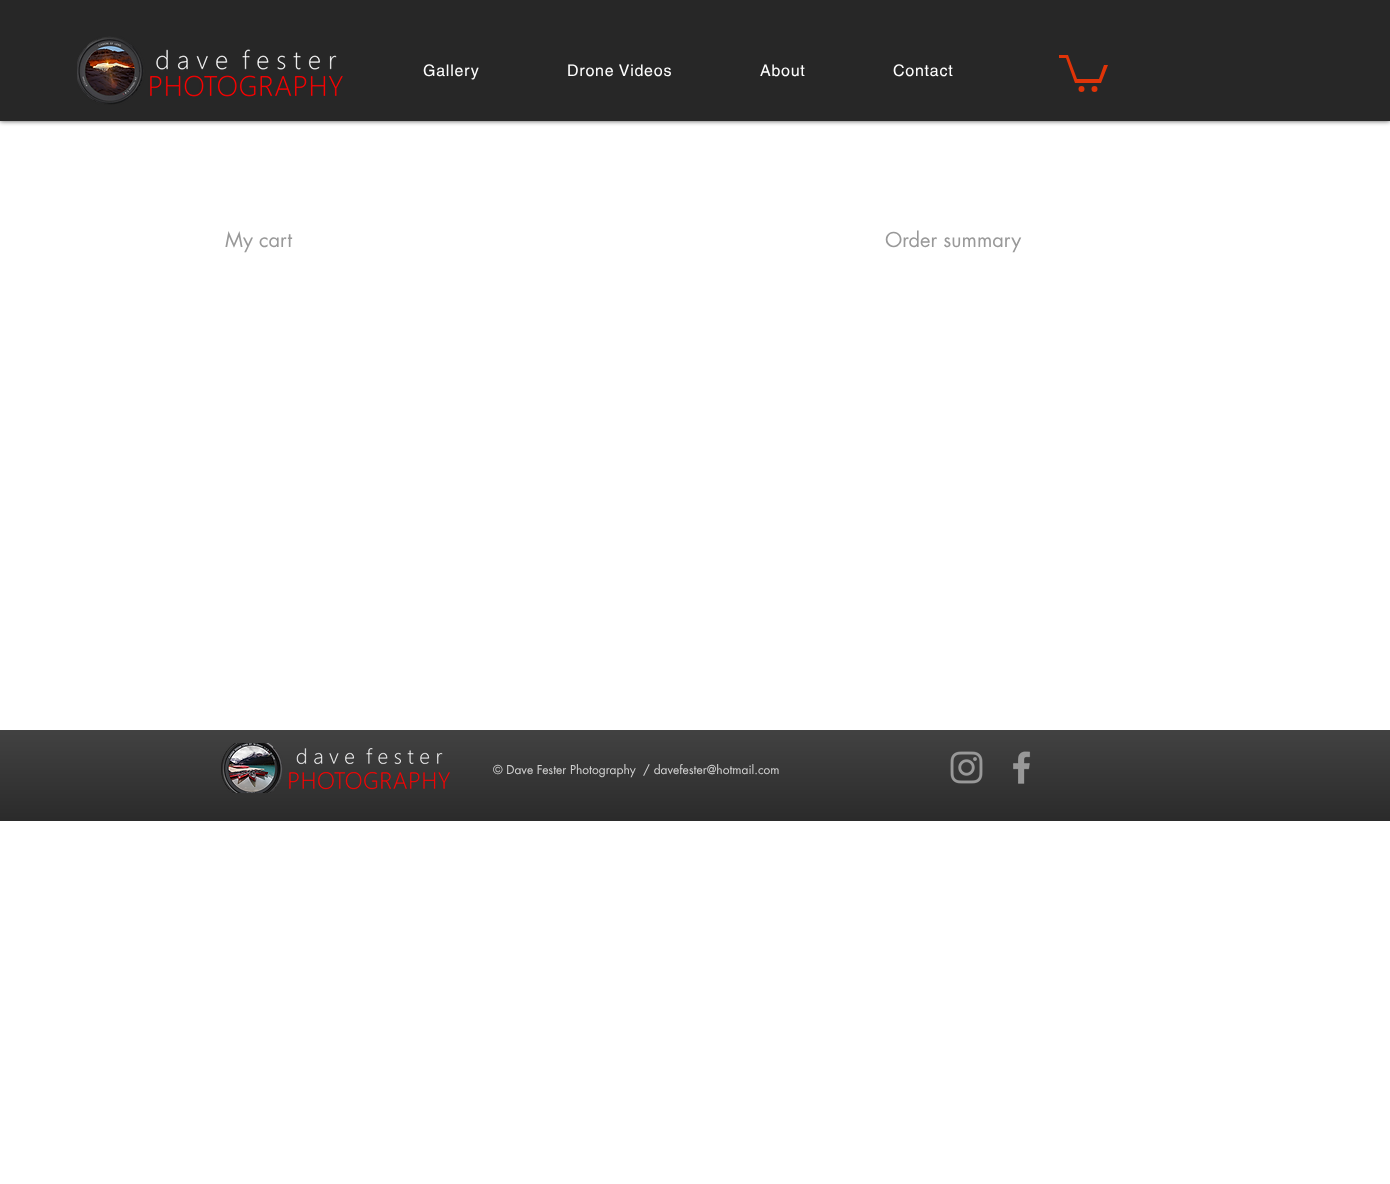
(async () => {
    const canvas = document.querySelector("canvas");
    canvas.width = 1390;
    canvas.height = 1184;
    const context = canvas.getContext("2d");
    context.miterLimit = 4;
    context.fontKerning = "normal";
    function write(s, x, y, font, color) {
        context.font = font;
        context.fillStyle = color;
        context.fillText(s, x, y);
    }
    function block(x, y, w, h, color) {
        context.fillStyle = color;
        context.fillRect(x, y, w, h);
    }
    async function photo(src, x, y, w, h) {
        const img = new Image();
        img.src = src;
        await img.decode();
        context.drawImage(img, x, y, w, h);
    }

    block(0, 0, 1390, 1184, "rgb(255, 255, 255)");
    context.fillStyle = "rgba(0, 0, 0, 0.7)";
    context.filter = "blur(2.5px)";
    context.beginPath();
    context.rect(0, 0, 1390, 121);
    context.fill();
    context.filter = "none";
    block(0, 0, 1390, 121, "rgb(39, 39, 39)");
    await photo("media/1.png", 77, 36, 266, 69);
    context.letterSpacing = "0.75px";
    write("Gallery", 423, 76, "16px helvetica", "rgb(255, 255, 255)");
    write("Drone Videos", 567, 76, "16px helvetica", "rgb(255, 255, 255)");
    write("About", 760, 76, "16px helvetica", "rgb(255, 255, 255)");
    write("Contact", 893, 76, "16px helvetica", "rgb(255, 255, 255)");
    context.fillStyle = "rgb(224, 52, 8)";
    context.beginPath();
    context.moveTo(1108, 65);
    context.lineTo(1101, 83);
    context.lineTo(1075, 83);
    context.lineTo(1066, 58);
    context.lineTo(1059, 58);
    context.lineTo(1059, 55);
    context.lineTo(1068, 55);
    context.lineTo(1077, 79);
    context.lineTo(1099, 79);
    context.lineTo(1104, 65);
    context.fill();
    context.beginPath();
    context.arc(1094.5, 89, 3, 0, Math.PI * 2);
    context.fill();
    context.beginPath();
    context.arc(1081.5, 89, 3, 0, Math.PI * 2);
    context.fill();
    context.letterSpacing = "0px";
    write("My cart", 225, 247, "20px futura", "rgb(153, 153, 153)");
    write("Order summary", 885, 247, "20px futura", "rgb(153, 153, 153)");
    block(0, 730, 1390, 91, "rgb(0, 0, 0)");
    await photo("media/2.png", 0, 730, 1390, 91);
    await photo("media/3.png", 221, 743, 229, 50);
    write("© Dave Fester Photography  / davefester@hotmail.com", 493, 774, "12px futura", "rgb(210, 210, 210)");
    await photo("media/4.png", 950, 751, 33, 33);
    await photo("media/5.png", 1013, 751, 18, 33);
})();
